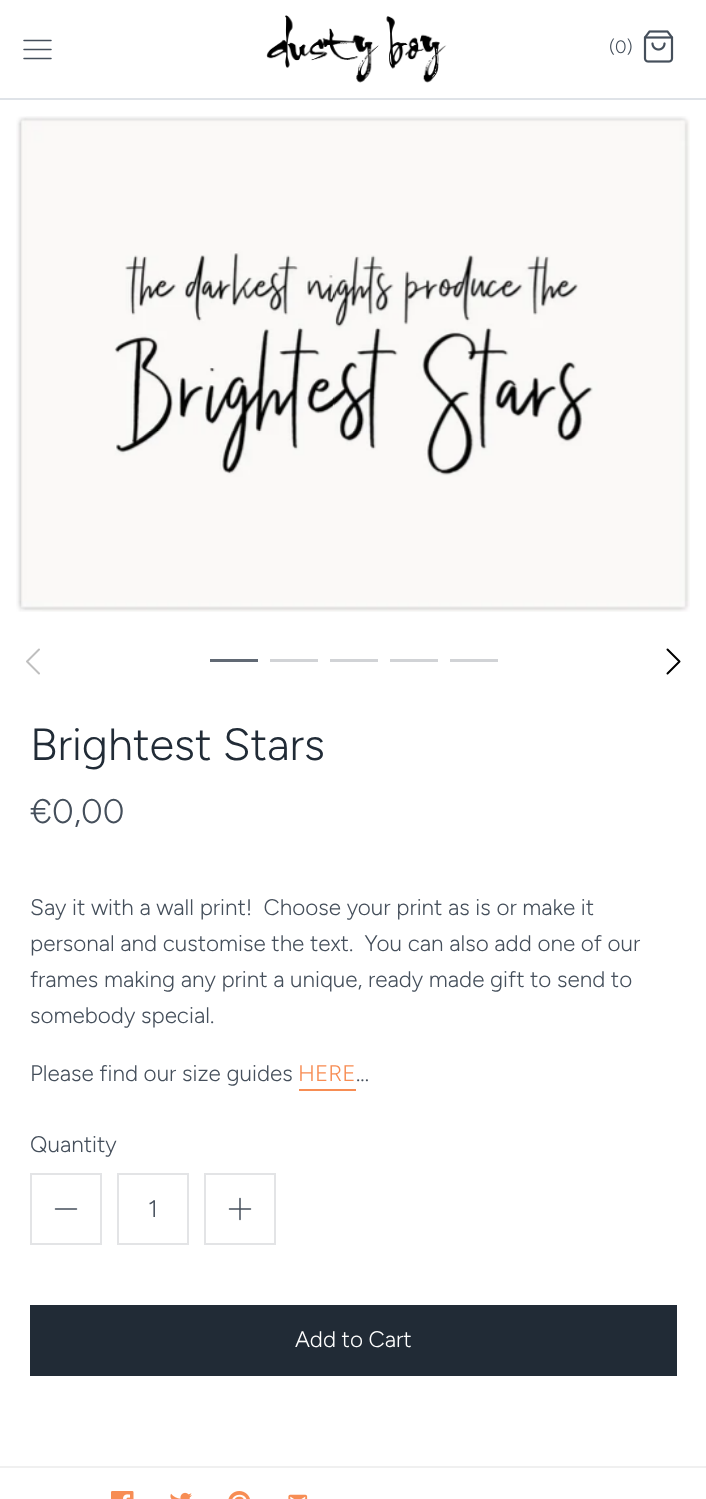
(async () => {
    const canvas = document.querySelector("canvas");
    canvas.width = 706;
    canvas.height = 1499;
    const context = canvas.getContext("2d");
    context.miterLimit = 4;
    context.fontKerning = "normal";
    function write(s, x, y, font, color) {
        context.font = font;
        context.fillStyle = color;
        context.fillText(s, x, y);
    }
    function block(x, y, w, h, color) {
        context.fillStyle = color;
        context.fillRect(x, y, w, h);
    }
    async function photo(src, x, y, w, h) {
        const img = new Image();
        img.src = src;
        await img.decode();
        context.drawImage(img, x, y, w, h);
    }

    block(0, 0, 706, 1499, "rgb(255, 255, 255)");
    block(0, 98, 706, 2, "rgb(223, 227, 232)");
    context.beginPath();
    context.moveTo(24, 49.5);
    context.lineTo(51, 49.5);
    context.moveTo(24, 40.5);
    context.lineTo(51, 40.5);
    context.moveTo(24, 58.5);
    context.lineTo(51, 58.5);
    context.strokeStyle = "rgb(69, 79, 91)";
    context.lineWidth = 1.5;
    context.lineCap = "round";
    context.lineJoin = "round";
    context.stroke();
    await photo("media/1.png", 266, 15, 181, 68);
    write("(0)", 609, 53, "300 18px Figtree", "rgb(69, 79, 91)");
    await photo("media/2.png", 643, 30, 31, 33);
    await photo("media/3.png", 16, 116, 674, 496);
    context.beginPath();
    context.moveTo(39, 673.5);
    context.lineTo(27, 661.5);
    context.lineTo(39, 649.5);
    context.strokeStyle = "rgb(191, 191, 191)";
    context.lineWidth = 2;
    context.stroke();
    context.beginPath();
    context.moveTo(667.5, 673.5);
    context.lineTo(679.5, 661.5);
    context.lineTo(667.5, 649.5);
    context.strokeStyle = "rgb(0, 0, 0)";
    context.stroke();
    block(210, 659, 48, 3, "rgb(97, 105, 116)");
    block(270, 659, 48, 3, "rgb(209, 211, 214)");
    block(330, 659, 48, 3, "rgb(209, 211, 214)");
    block(390, 659, 48, 3, "rgb(209, 211, 214)");
    block(450, 659, 48, 3, "rgb(209, 211, 214)");
    write("Brightest Stars", 30, 760, "300 45px Figtree", "rgb(33, 43, 54)");
    write("€0,00", 30, 823, "300 34px Figtree", "rgb(69, 79, 91)");
    write("Say it with a wall print!  Choose your print as is or make it", 30, 915, "300 22.5px Figtree", "rgb(69, 79, 91)");
    write("personal and customise the text.  You can also add one of our", 30, 951, "300 22.5px Figtree", "rgb(69, 79, 91)");
    write("frames making any print a unique, ready made gift to send to", 30, 987, "300 22.5px Figtree", "rgb(69, 79, 91)");
    write("somebody special.", 30, 1023, "300 22.5px Figtree", "rgb(69, 79, 91)");
    write("Please find our size guides", 30, 1081, "300 22.5px Figtree", "rgb(69, 79, 91)");
    write("HERE", 298, 1081, "300 22.5px Figtree", "rgb(247, 141, 84)");
    block(299, 1089, 57, 2, "rgb(247, 141, 84)");
    write("...", 356, 1081, "300 22.5px Figtree", "rgb(69, 79, 91)");
    write("Quantity", 30, 1152, "300 22.5px Figtree", "rgb(69, 79, 91)");
    context.strokeStyle = "rgb(227, 228, 230)";
    context.lineJoin = "miter";
    context.strokeRect(31, 1174, 70, 70);
    context.beginPath();
    context.moveTo(55.5, 1209);
    context.lineTo(76.5, 1209);
    context.strokeStyle = "rgb(69, 79, 91)";
    context.lineWidth = 1.5;
    context.lineJoin = "round";
    context.stroke();
    context.strokeStyle = "rgb(227, 228, 230)";
    context.lineWidth = 2;
    context.lineJoin = "miter";
    context.strokeRect(118, 1174, 70, 70);
    write("1", 148, 1217, "300 24px Figtree", "rgb(69, 79, 91)");
    context.strokeRect(205, 1174, 70, 70);
    context.beginPath();
    context.moveTo(240, 1198.5);
    context.lineTo(240, 1219.5);
    context.moveTo(229.5, 1209);
    context.lineTo(250.5, 1209);
    context.strokeStyle = "rgb(69, 79, 91)";
    context.lineWidth = 1.5;
    context.lineJoin = "round";
    context.stroke();
    block(30, 1305, 647, 71, "rgb(33, 43, 54)");
    write("Add to Cart", 295, 1347, "300 22.5px Figtree", "rgb(255, 255, 255)");
    block(0, 1466, 706, 2, "rgb(240, 240, 240)");
    await photo("media/4.png", 111, 1491, 23, 8);
    await photo("media/5.png", 170, 1492, 22, 7);
    await photo("media/6.png", 228, 1491, 22, 8);
    await photo("media/7.png", 288, 1494, 20, 5);
})();
